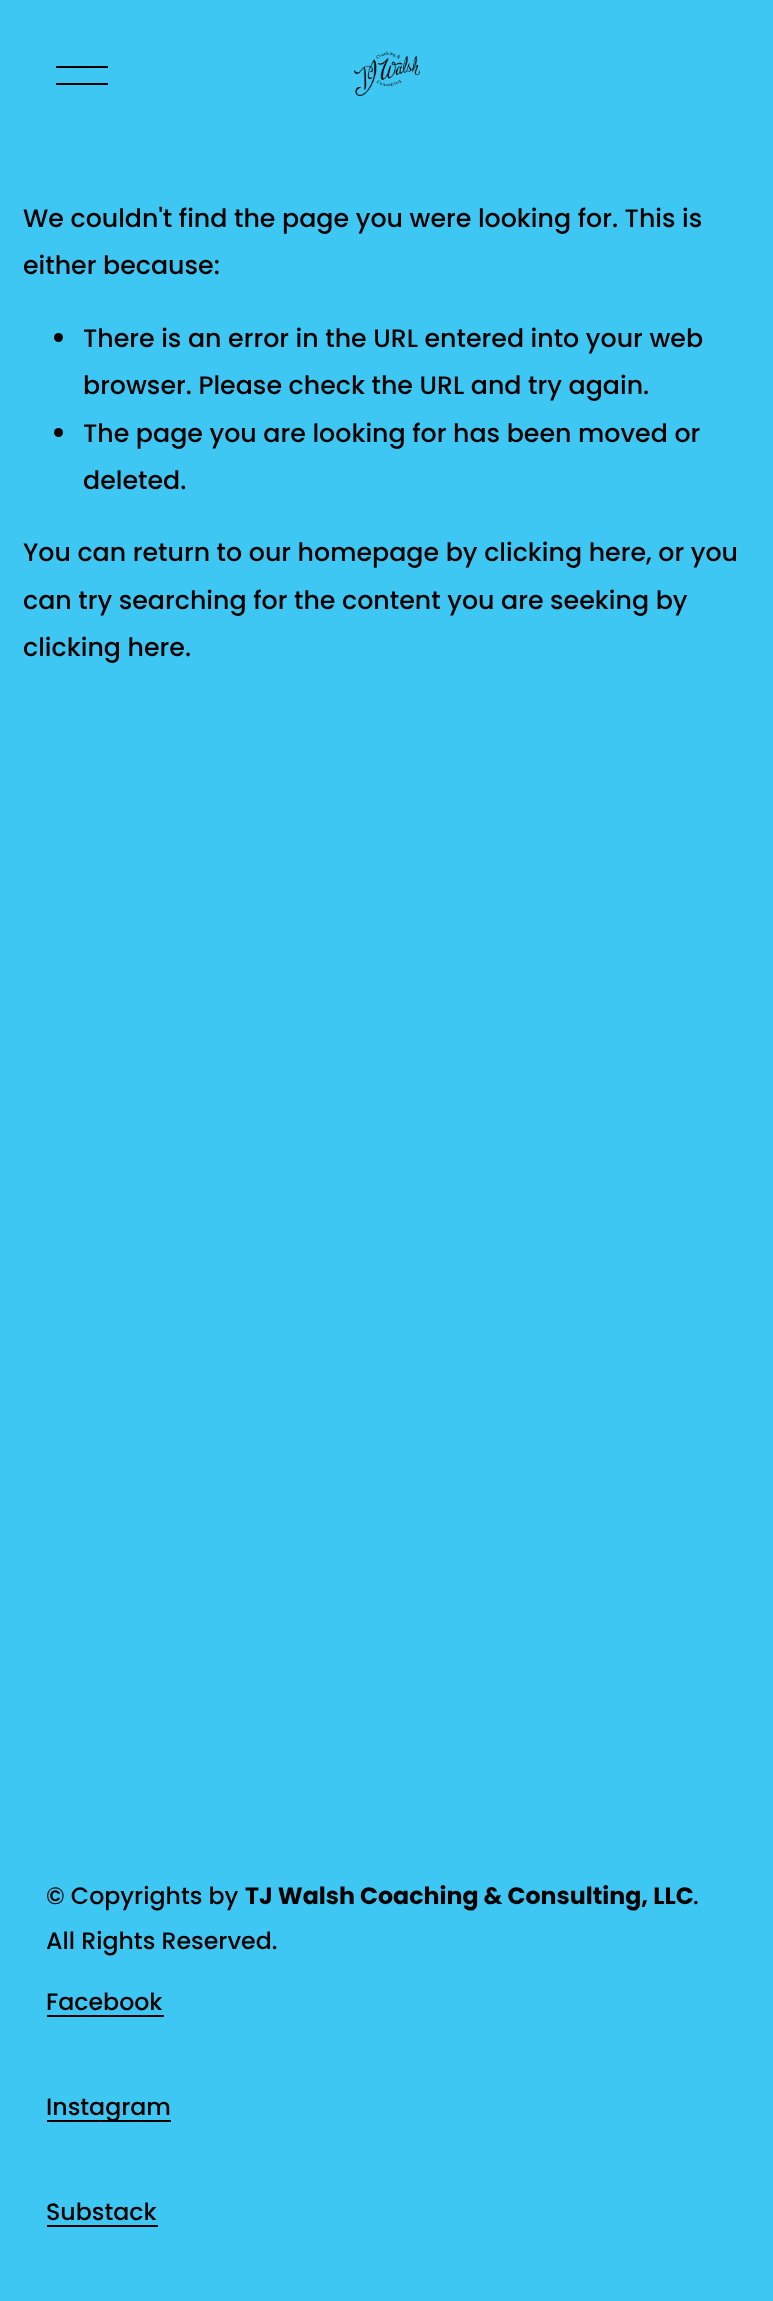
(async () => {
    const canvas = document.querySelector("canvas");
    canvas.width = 773;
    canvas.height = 2301;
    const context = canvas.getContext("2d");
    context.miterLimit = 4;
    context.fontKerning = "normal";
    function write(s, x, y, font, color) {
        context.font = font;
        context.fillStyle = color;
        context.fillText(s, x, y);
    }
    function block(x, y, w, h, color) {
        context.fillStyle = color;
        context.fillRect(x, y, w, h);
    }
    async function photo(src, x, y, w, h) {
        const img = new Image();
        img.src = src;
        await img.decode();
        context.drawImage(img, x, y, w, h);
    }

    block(0, 0, 773, 2301, "rgb(63, 199, 244)");
    block(56, 66, 52, 2, "rgb(0, 0, 0)");
    block(56, 83, 52, 2, "rgb(0, 0, 0)");
    await photo("media/1.png", 354, 51, 66, 45);
    write("We couldn't find the page you were looking for. This is", 23, 227, "500 25.3px Poppins", "rgb(0, 0, 0)");
    write("either because:", 23, 274, "500 25.3px Poppins", "rgb(0, 0, 0)");
    context.beginPath();
    context.arc(58.5, 337.5, 4.5, 0, Math.PI * 2);
    context.fill();
    write("There is an error in the URL entered into your web", 83, 347, "500 25.3px Poppins", "rgb(0, 0, 0)");
    write("browser. Please check the URL and try again.", 83, 394, "500 25.3px Poppins", "rgb(0, 0, 0)");
    context.beginPath();
    context.arc(58.5, 432.5, 4.5, 0, Math.PI * 2);
    context.fill();
    write("The page you are looking for has been moved or", 83, 442, "500 25.3px Poppins", "rgb(0, 0, 0)");
    write("deleted.", 83, 489, "500 25.3px Poppins", "rgb(0, 0, 0)");
    write("You can return to our homepage by clicking here, or you", 23, 561, "500 25.3px Poppins", "rgb(0, 0, 0)");
    write("can try searching for the content you are seeking by", 23, 609, "500 25.3px Poppins", "rgb(0, 0, 0)");
    write("clicking here.", 23, 656, "500 25.3px Poppins", "rgb(0, 0, 0)");
    write("© Copyrights by", 46, 1904, "500 23.7px Poppins", "rgb(0, 0, 0)");
    write("TJ Walsh Coaching & Consulting, LLC", 245, 1904, "bold 23.7px Poppins", "rgb(0, 0, 0)");
    write(".", 693, 1904, "500 23.7px Poppins", "rgb(0, 0, 0)");
    write("All Rights Reserved.", 46, 1949, "500 23.7px Poppins", "rgb(0, 0, 0)");
    write("Facebook", 46, 2010, "500 23.7px Poppins", "rgb(0, 0, 0)");
    block(47, 2015, 117, 2, "rgb(0, 0, 0)");
    block(47, 2120, 124, 2, "rgb(0, 0, 0)");
    write("Instagram", 46, 2115, "500 23.7px Poppins", "rgb(0, 0, 0)");
    write("Substack", 46, 2220, "500 23.7px Poppins", "rgb(0, 0, 0)");
    block(47, 2225, 111, 2, "rgb(0, 0, 0)");
})();
